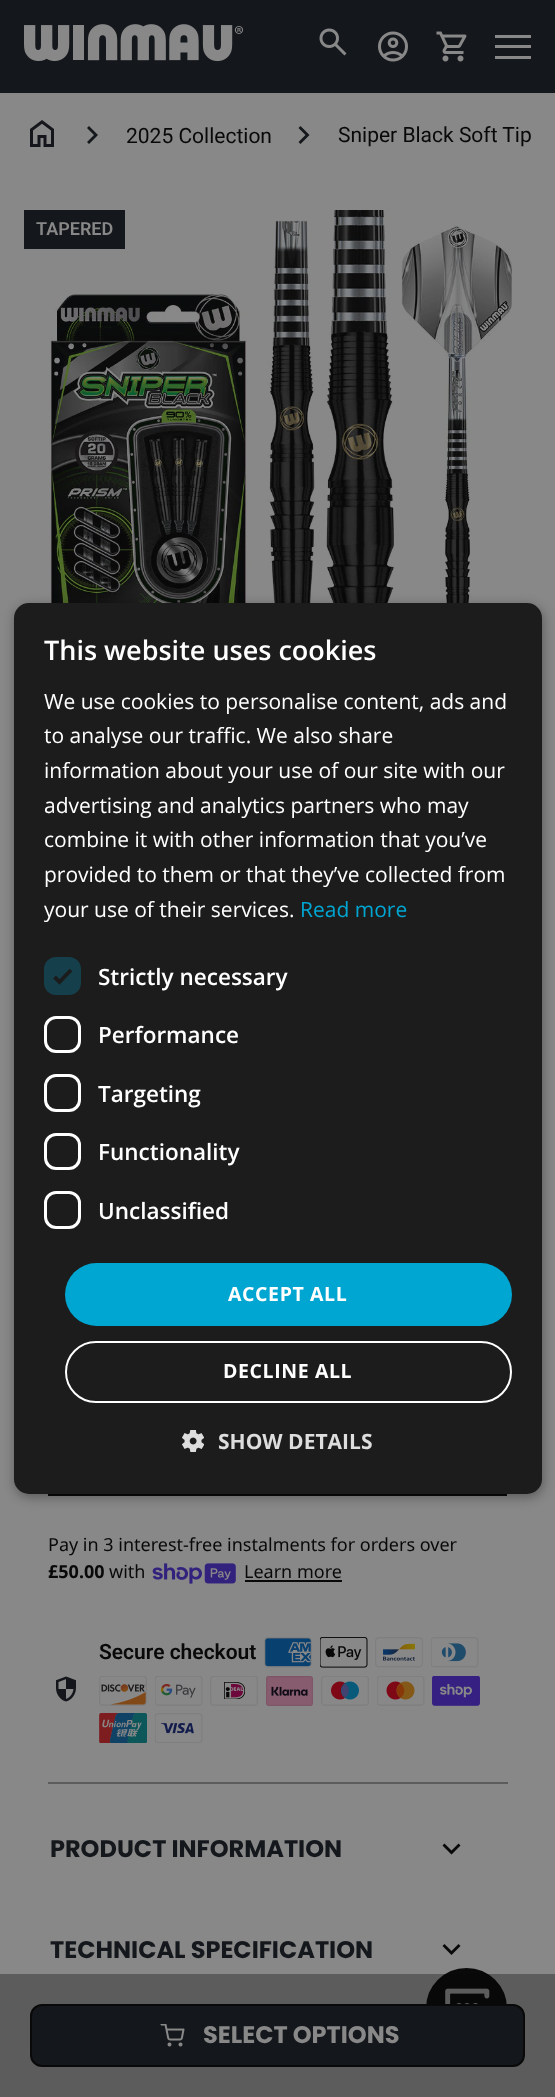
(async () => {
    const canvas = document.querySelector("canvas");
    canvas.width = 555;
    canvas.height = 2097;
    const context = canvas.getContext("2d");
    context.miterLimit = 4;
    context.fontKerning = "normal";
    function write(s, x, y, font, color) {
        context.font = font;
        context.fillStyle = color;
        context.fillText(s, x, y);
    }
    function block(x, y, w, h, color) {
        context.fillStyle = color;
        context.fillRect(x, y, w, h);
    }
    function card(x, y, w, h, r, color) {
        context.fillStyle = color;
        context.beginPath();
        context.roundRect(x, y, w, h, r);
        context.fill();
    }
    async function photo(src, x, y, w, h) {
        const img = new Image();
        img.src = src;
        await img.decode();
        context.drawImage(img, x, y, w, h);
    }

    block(0, 0, 555, 2097, "rgb(136, 136, 136)");
    block(0, 0, 555, 93, "rgb(20, 23, 27)");
    await photo("media/1.png", 24, 24, 219, 38);
    await photo("media/2.png", 319, 28, 28, 28);
    await photo("media/3.png", 378, 31, 30, 31);
    await photo("media/4.png", 436, 31, 31, 31);
    block(495, 35, 36, 3, "rgb(136, 136, 136)");
    block(495, 45, 36, 3, "rgb(136, 136, 136)");
    block(495, 56, 36, 3, "rgb(136, 136, 136)");
    await photo("media/5.png", 30, 120, 24, 27);
    context.fillStyle = "rgb(20, 23, 27)";
    context.beginPath();
    context.moveTo(94, 135);
    context.lineTo(87, 128);
    context.lineTo(89, 126);
    context.lineTo(98, 135);
    context.lineTo(89, 144);
    context.lineTo(87, 142);
    context.closePath();
    context.fill();
    write("2025 Collection", 126, 143, "21px Roboto", "rgb(9, 9, 9)");
    context.fillStyle = "rgb(20, 23, 27)";
    context.beginPath();
    context.moveTo(305.5, 135);
    context.lineTo(298.5, 128);
    context.lineTo(300.5, 126);
    context.lineTo(309.5, 135);
    context.lineTo(300.5, 144);
    context.lineTo(298.5, 142);
    context.closePath();
    context.fill();
    write("Sniper Black Soft Tip", 338, 142, "21px Roboto", "rgb(9, 9, 9)");
    await photo("media/6.png", 49, 210, 463, 393);
    block(24, 210, 101, 39, "rgb(20, 23, 27)");
    write("TAPERED", 36, 235, "600 18px Roboto", "rgb(136, 136, 136)");
    context.strokeStyle = "rgb(9, 9, 9)";
    context.lineWidth = 2;
    context.strokeRect(49, 1434, 457, 61);
    write("Pay in 3 interest-free instalments for orders over", 48, 1551, "18px Noto Sans", "rgb(9, 9, 9)");
    write("£50.00", 48, 1578, "bold 18px Noto Sans", "rgb(9, 9, 9)");
    write("with", 109, 1578, "18px Noto Sans", "rgb(9, 9, 9)");
    await photo("media/7.png", 152, 1563, 84, 21);
    write("Learn more", 244, 1578, "18px Noto Sans", "rgb(9, 9, 9)");
    block(245, 1580, 97, 2, "rgb(9, 9, 9)");
    write("Secure checkout", 99, 1659, "600 21px Roboto", "rgb(9, 9, 9)");
    await photo("media/8.png", 264, 1637, 48, 31);
    await photo("media/9.png", 320, 1637, 48, 31);
    await photo("media/10.png", 375, 1637, 48, 31);
    await photo("media/11.png", 431, 1637, 48, 31);
    await photo("media/12.png", 99, 1676, 48, 30);
    await photo("media/13.png", 155, 1676, 48, 30);
    await photo("media/14.png", 210, 1676, 48, 30);
    await photo("media/15.png", 266, 1676, 47, 30);
    await photo("media/16.png", 321, 1676, 48, 30);
    await photo("media/17.png", 377, 1676, 48, 30);
    await photo("media/18.png", 432, 1676, 48, 30);
    await photo("media/19.png", 99, 1713, 48, 30);
    await photo("media/20.png", 155, 1713, 48, 30);
    await photo("media/21.png", 56, 1676, 20, 26);
    block(48, 1782, 460, 2, "rgb(92, 92, 92)");
    write("PRODUCT INFORMATION", 50, 1857, "bold 24px Poppins", "rgb(20, 23, 27)");
    context.fillStyle = "rgb(9, 9, 9)";
    context.beginPath();
    context.moveTo(451.5, 1854.5);
    context.lineTo(442.5, 1845.5);
    context.lineTo(444.5, 1843.5);
    context.lineTo(451.5, 1850.5);
    context.lineTo(458.5, 1843.5);
    context.lineTo(460.5, 1845.5);
    context.closePath();
    context.fill();
    write("TECHNICAL SPECIFICATION", 50, 1958, "bold 24px Poppins", "rgb(20, 23, 27)");
    context.fillStyle = "rgb(9, 9, 9)";
    context.beginPath();
    context.moveTo(451.5, 1955);
    context.lineTo(442.5, 1946);
    context.lineTo(444.5, 1944);
    context.lineTo(451.5, 1951);
    context.lineTo(458.5, 1944);
    context.lineTo(460.5, 1946);
    context.closePath();
    context.fill();
    context.beginPath();
    context.arc(466.5, 2008.5, 42, 0, Math.PI * 2);
    context.fill();
    context.strokeStyle = "rgb(136, 136, 136)";
    context.lineWidth = 3;
    context.stroke();
    await photo("media/24.png", 445, 1988, 45, 16);
    block(0, 1974, 555, 123, "rgba(9, 9, 9, 0.34)");
    context.fillStyle = "rgb(20, 23, 27)";
    context.beginPath();
    context.roundRect(31, 2005, 493, 61, 11);
    context.fill();
    context.strokeStyle = "rgb(9, 9, 9)";
    context.lineWidth = 2;
    context.stroke();
    await photo("media/22.png", 160, 2024, 25, 23);
    write("SELECT OPTIONS", 203, 2043, "bold 24px Poppins", "rgb(136, 136, 136)");
    context.fillStyle = "rgba(0, 0, 0, 0.35)";
    context.filter = "blur(6px)";
    context.beginPath();
    context.roundRect(15, 606, 528, 891, 15);
    context.fill();
    context.filter = "none";
    card(14, 603, 528, 891, 15, "rgb(28, 28, 28)");
    write("This website uses cookies", 44, 660, "600 27px Open Sans", "rgb(255, 255, 255)");
    write("We use cookies to personalise content, ads and", 44, 709, "21px Open Sans", "rgb(255, 255, 255)");
    write("to analyse our traffic. We also share", 44, 743, "21px Open Sans", "rgb(255, 255, 255)");
    write("information about your use of our site with our", 44, 778, "21px Open Sans", "rgb(255, 255, 255)");
    write("advertising and analytics partners who may", 44, 813, "21px Open Sans", "rgb(255, 255, 255)");
    write("combine it with other information that you’ve", 44, 847, "21px Open Sans", "rgb(255, 255, 255)");
    write("provided to them or that they’ve collected from", 44, 882, "21px Open Sans", "rgb(255, 255, 255)");
    write("your use of their services.", 44, 917, "21px Open Sans", "rgb(255, 255, 255)");
    write("Read more", 300, 917, "21px Open Sans", "rgb(0, 166, 210)");
    card(44, 957, 37, 38, 12, "rgb(21, 64, 75)");
    context.beginPath();
    context.moveTo(54.5, 977);
    context.lineTo(59.5, 982);
    context.lineTo(71, 970);
    context.strokeStyle = "rgb(28, 28, 28)";
    context.lineWidth = 3.9;
    context.stroke();
    write("Strictly necessary", 98, 985, "600 22.5px Open Sans", "rgb(255, 255, 255)");
    context.beginPath();
    context.roundRect(45.5, 1017.5, 34, 34, 10.5);
    context.strokeStyle = "rgb(255, 255, 255)";
    context.lineWidth = 3;
    context.stroke();
    write("Performance", 98, 1043, "600 22.5px Open Sans", "rgb(255, 255, 255)");
    context.beginPath();
    context.roundRect(45.5, 1075.5, 34, 35, 10.5);
    context.stroke();
    write("Targeting", 98, 1102, "600 22.5px Open Sans", "rgb(255, 255, 255)");
    context.beginPath();
    context.roundRect(45.5, 1134.5, 34, 34, 10.5);
    context.stroke();
    write("Functionality", 98, 1160, "600 22.5px Open Sans", "rgb(255, 255, 255)");
    context.beginPath();
    context.roundRect(45.5, 1192.5, 34, 35, 10.5);
    context.stroke();
    write("Unclassified", 98, 1219, "600 22.5px Open Sans", "rgb(255, 255, 255)");
    card(65, 1263, 447, 63, 31.5, "rgb(0, 166, 210)");
    context.letterSpacing = "0.6px";
    write("ACCEPT ALL", 228, 1301, "bold 19.5px Open Sans", "rgb(255, 255, 255)");
    context.beginPath();
    context.roundRect(66, 1342, 445, 60, 30);
    context.lineWidth = 2;
    context.stroke();
    write("DECLINE ALL", 223, 1378, "bold 19.5px Open Sans", "rgb(255, 255, 255)");
    await photo("media/23.png", 182, 1430, 22, 22);
    context.letterSpacing = "0px";
    write("SHOW DETAILS", 218, 1449, "bold 21px Open Sans", "rgb(221, 221, 221)");
})();
